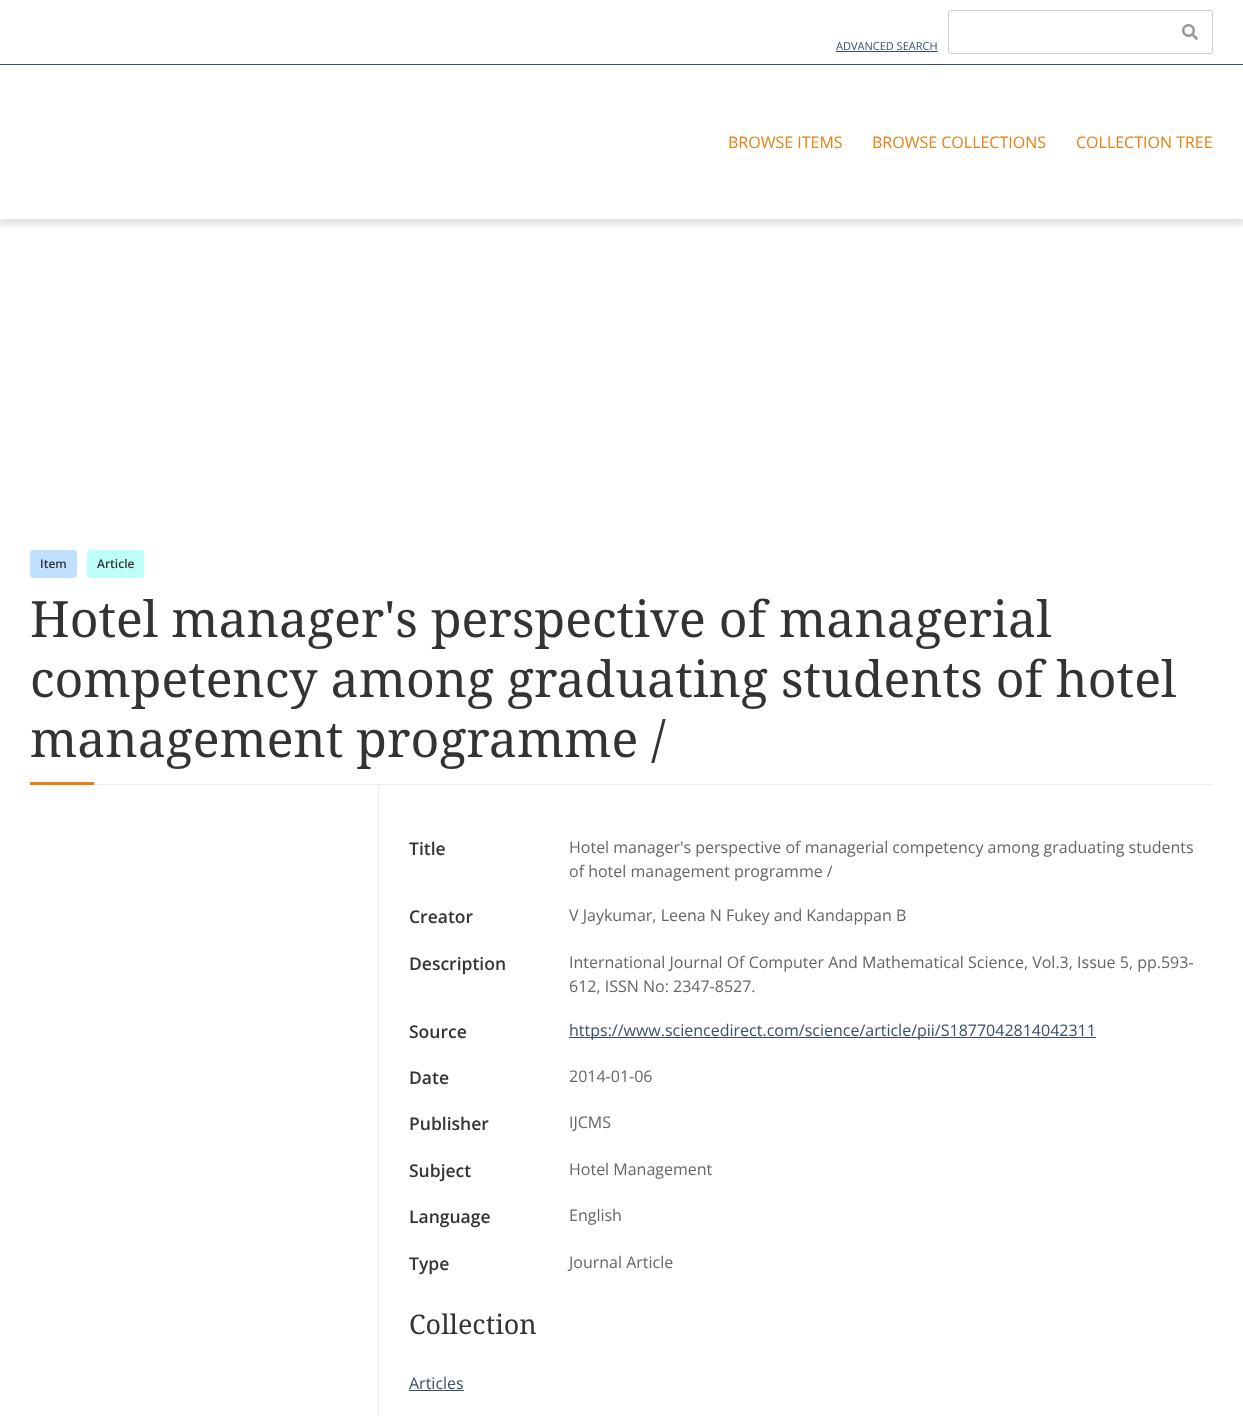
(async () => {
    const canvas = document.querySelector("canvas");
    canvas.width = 1243;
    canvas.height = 1416;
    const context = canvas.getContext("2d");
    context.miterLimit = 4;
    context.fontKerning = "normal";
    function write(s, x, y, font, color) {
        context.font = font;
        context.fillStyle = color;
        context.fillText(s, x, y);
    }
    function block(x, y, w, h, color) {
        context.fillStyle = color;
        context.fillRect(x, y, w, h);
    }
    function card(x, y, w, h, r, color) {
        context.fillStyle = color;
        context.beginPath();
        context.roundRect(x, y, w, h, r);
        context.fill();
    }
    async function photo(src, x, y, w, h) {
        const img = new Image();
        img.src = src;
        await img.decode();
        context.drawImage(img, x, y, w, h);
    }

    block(0, 0, 1243, 1416, "rgb(255, 255, 255)");
    context.save();
    context.beginPath();
    context.rect(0, 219, 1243, 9);
    context.clip();
    context.fillStyle = "rgba(0, 0, 0, 0.11)";
    context.filter = "blur(3px)";
    context.beginPath();
    context.rect(-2, 2, 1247, 223);
    context.fill();
    context.filter = "none";
    context.restore();
    write("ADVANCED SEARCH", 836, 50, "11px Open Sans", "rgb(57, 79, 104)");
    block(836, 51, 102, 1, "rgb(57, 79, 104)");
    context.beginPath();
    context.roundRect(948.5, 10.5, 264, 43, 2.5);
    context.strokeStyle = "rgb(204, 204, 204)";
    context.stroke();
    await photo("media/1.png", 1182, 24, 16, 16);
    block(0, 64, 1243, 1, "rgb(57, 79, 104)");
    write("BROWSE ITEMS", 728, 148, "16px Open Sans", "rgb(231, 127, 17)");
    write("BROWSE COLLECTIONS", 872, 148, "16px Open Sans", "rgb(231, 127, 17)");
    write("COLLECTION TREE", 1076, 148, "16px Open Sans", "rgb(231, 127, 17)");
    card(30, 550, 47, 28, 3, "rgb(191, 224, 255)");
    write("Item", 40, 568, "600 12px Open Sans", "rgb(51, 51, 51)");
    card(87, 550, 57, 28, 3, "rgb(191, 255, 250)");
    write("Article", 97, 568, "600 12px Open Sans", "rgb(51, 51, 51)");
    block(94, 784, 1119, 1, "rgb(236, 236, 236)");
    write("Hotel manager's perspective of managerial", 30, 637, "50px Noto Serif", "rgb(51, 51, 51)");
    write("competency among graduating students of hotel", 30, 697, "50px Noto Serif", "rgb(51, 51, 51)");
    write("management programme /", 30, 757, "50px Noto Serif", "rgb(51, 51, 51)");
    block(30, 782, 64, 3, "rgb(231, 127, 17)");
    block(378, 785, 1, 631, "rgb(236, 236, 236)");
    write("Title", 409, 855, "600 17.5px Open Sans", "rgb(51, 51, 51)");
    write("Hotel manager's perspective of managerial competency among graduating students", 569, 853, "16px Open Sans", "rgb(102, 102, 102)");
    write("of hotel management programme /", 569, 877, "16px Open Sans", "rgb(102, 102, 102)");
    write("Creator", 409, 923, "600 17.5px Open Sans", "rgb(51, 51, 51)");
    write("V Jaykumar, Leena N Fukey and Kandappan B", 569, 921, "16px Open Sans", "rgb(102, 102, 102)");
    write("Description", 409, 970, "600 17.5px Open Sans", "rgb(51, 51, 51)");
    write("International Journal Of Computer And Mathematical Science, Vol.3, Issue 5, pp.593-", 569, 968, "16px Open Sans", "rgb(102, 102, 102)");
    write("612, ISSN No: 2347-8527.", 569, 992, "16px Open Sans", "rgb(102, 102, 102)");
    write("Source", 409, 1038, "600 17.5px Open Sans", "rgb(51, 51, 51)");
    block(569, 1037, 527, 1, "rgb(57, 79, 104)");
    write("https://www.sciencedirect.com/science/article/pii/S1877042814042311", 569, 1036, "16px Open Sans", "rgb(57, 79, 104)");
    write("Date", 409, 1084, "600 17.5px Open Sans", "rgb(51, 51, 51)");
    write("2014-01-06", 569, 1082, "16px Open Sans", "rgb(102, 102, 102)");
    write("Publisher", 409, 1130, "600 17.5px Open Sans", "rgb(51, 51, 51)");
    write("IJCMS", 569, 1128, "16px Open Sans", "rgb(102, 102, 102)");
    write("Subject", 409, 1177, "600 17.5px Open Sans", "rgb(51, 51, 51)");
    write("Hotel Management", 569, 1175, "16px Open Sans", "rgb(102, 102, 102)");
    write("Language", 409, 1223, "600 17.5px Open Sans", "rgb(51, 51, 51)");
    write("English", 569, 1221, "16px Open Sans", "rgb(102, 102, 102)");
    write("Type", 409, 1270, "600 17.5px Open Sans", "rgb(51, 51, 51)");
    write("Journal Article", 569, 1268, "16px Open Sans", "rgb(102, 102, 102)");
    write("Collection", 409, 1334, "27px Noto Serif", "rgb(51, 51, 51)");
    write("Articles", 409, 1389, "16px Open Sans", "rgb(57, 79, 104)");
    block(409, 1390, 55, 1, "rgb(57, 79, 104)");
})();
